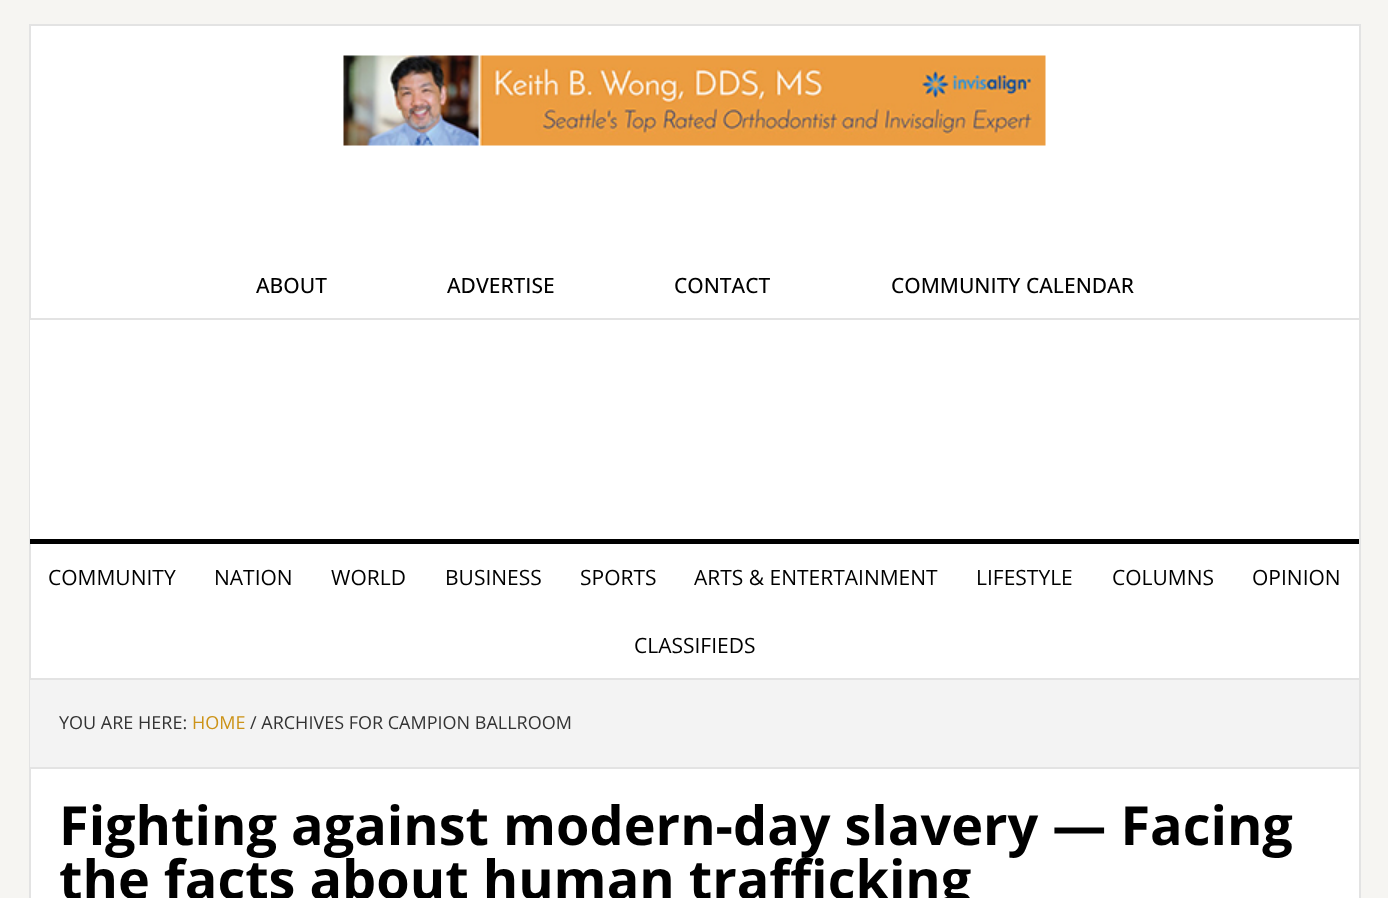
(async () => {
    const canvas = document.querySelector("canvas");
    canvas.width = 1388;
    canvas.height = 898;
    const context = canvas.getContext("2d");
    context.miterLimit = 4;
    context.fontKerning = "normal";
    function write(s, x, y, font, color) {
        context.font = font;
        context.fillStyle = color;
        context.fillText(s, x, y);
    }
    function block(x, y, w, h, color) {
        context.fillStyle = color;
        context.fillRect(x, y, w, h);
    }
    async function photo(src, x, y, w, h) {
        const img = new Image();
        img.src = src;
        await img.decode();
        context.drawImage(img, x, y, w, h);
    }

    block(0, 0, 1388, 898, "rgb(246, 245, 242)");
    context.fillStyle = "rgb(255, 255, 255)";
    context.beginPath();
    context.rect(30, 25, 1330, 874);
    context.fill();
    context.strokeStyle = "rgb(227, 227, 227)";
    context.lineWidth = 2;
    context.stroke();
    await photo("media/1.png", 343, 55, 703, 91);
    block(30, 318, 1329, 2, "rgb(227, 227, 227)");
    write("ABOUT", 256, 293, "500 21px Open Sans", "rgb(0, 0, 0)");
    write("ADVERTISE", 447, 293, "500 21px Open Sans", "rgb(0, 0, 0)");
    write("CONTACT", 674, 293, "500 21px Open Sans", "rgb(0, 0, 0)");
    write("COMMUNITY CALENDAR", 891, 293, "500 21px Open Sans", "rgb(0, 0, 0)");
    block(30, 320, 1, 219, "rgb(255, 255, 255)");
    block(30, 539, 1329, 5, "rgb(0, 0, 0)");
    block(30, 678, 1329, 2, "rgb(227, 227, 227)");
    write("COMMUNITY", 48, 585, "21px Open Sans", "rgb(0, 0, 0)");
    write("NATION", 214, 585, "21px Open Sans", "rgb(0, 0, 0)");
    write("WORLD", 331, 585, "21px Open Sans", "rgb(0, 0, 0)");
    write("BUSINESS", 445, 585, "21px Open Sans", "rgb(0, 0, 0)");
    write("SPORTS", 580, 585, "21px Open Sans", "rgb(0, 0, 0)");
    write("ARTS & ENTERTAINMENT", 694, 585, "21px Open Sans", "rgb(0, 0, 0)");
    write("LIFESTYLE", 976, 585, "21px Open Sans", "rgb(0, 0, 0)");
    write("COLUMNS", 1112, 585, "21px Open Sans", "rgb(0, 0, 0)");
    write("OPINION", 1252, 585, "21px Open Sans", "rgb(0, 0, 0)");
    write("CLASSIFIEDS", 634, 653, "21px Open Sans", "rgb(0, 0, 0)");
    block(30, 680, 1329, 87, "rgb(243, 243, 243)");
    block(30, 767, 1329, 2, "rgb(227, 227, 227)");
    write("YOU ARE HERE:", 59, 729, "18px Open Sans", "rgb(51, 51, 51)");
    write("HOME", 192, 729, "18px Open Sans", "rgb(204, 147, 24)");
    write("/ ARCHIVES FOR CAMPION BALLROOM", 250, 729, "18px Open Sans", "rgb(51, 51, 51)");
    write("Fighting against modern-day slavery — Facing", 59, 845, "bold 54px Open Sans", "rgb(0, 0, 0)");
    write("the facts about human trafficking", 59, 899, "bold 54px Open Sans", "rgb(0, 0, 0)");
})();
